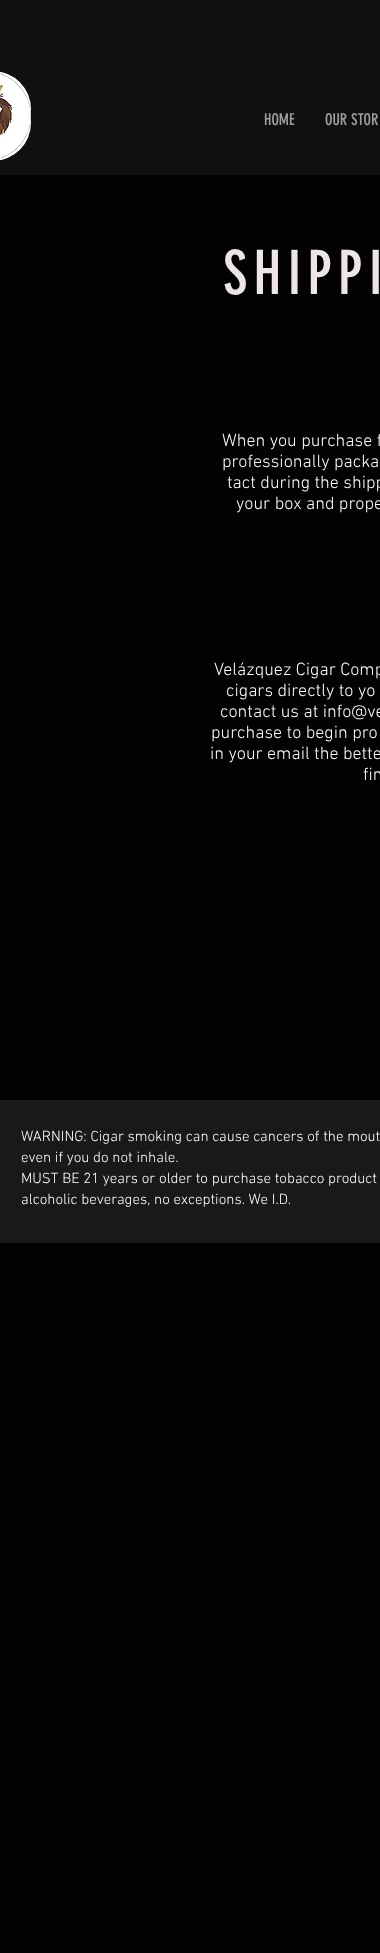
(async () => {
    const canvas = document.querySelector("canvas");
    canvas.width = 380;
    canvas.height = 1953;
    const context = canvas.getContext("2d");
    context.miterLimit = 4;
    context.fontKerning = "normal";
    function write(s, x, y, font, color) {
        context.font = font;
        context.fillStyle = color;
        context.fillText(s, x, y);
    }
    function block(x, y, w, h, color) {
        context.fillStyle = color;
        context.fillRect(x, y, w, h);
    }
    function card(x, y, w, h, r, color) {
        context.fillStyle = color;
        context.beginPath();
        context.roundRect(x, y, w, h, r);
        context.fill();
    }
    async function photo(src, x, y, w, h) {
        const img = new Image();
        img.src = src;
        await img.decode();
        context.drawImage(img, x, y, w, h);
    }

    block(0, 0, 380, 1953, "rgb(2, 2, 2)");
    block(0, 0, 380, 175, "rgb(16, 16, 16)");
    card(-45, 71, 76, 90, 45, "rgb(255, 255, 255)");
    await photo("media/1.png", 0, 73, 31, 85);
    write("HOME", 264, 125, "16px 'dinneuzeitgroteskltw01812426'", "rgb(162, 156, 156)");
    write("OUR STOR", 325, 125, "16px 'dinneuzeitgroteskltw01812426'", "rgb(162, 156, 156)");
    context.letterSpacing = "6px";
    write("SHIPPI", 223, 294, "60px 'dinneuzeitgroteskltw01812426'", "rgb(238, 230, 230)");
    context.letterSpacing = "0px";
    write("When you purchase f", 222, 446, "300 18px 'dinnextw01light'", "rgb(255, 255, 255)");
    write("professionally packa", 222, 467, "300 18px 'dinnextw01light'", "rgb(255, 255, 255)");
    write("tact during the shipp", 227, 488, "300 18px 'dinnextw01light'", "rgb(255, 255, 255)");
    write("your box and prope", 236, 509, "300 18px 'dinnextw01light'", "rgb(255, 255, 255)");
    write("Velázquez Cigar Comp", 214, 675, "300 18px 'dinnextw01light'", "rgb(255, 255, 255)");
    write("cigars directly to yo", 226, 696, "300 18px 'dinnextw01light'", "rgb(255, 255, 255)");
    write("contact us at info@ve", 220, 717, "300 18px 'dinnextw01light'", "rgb(255, 255, 255)");
    write("purchase to begin pro", 211, 738, "300 18px 'dinnextw01light'", "rgb(255, 255, 255)");
    write("in your email the bette", 210, 759, "300 18px 'dinnextw01light'", "rgb(255, 255, 255)");
    write("fin", 363, 780, "300 18px 'dinnextw01light'", "rgb(255, 255, 255)");
    block(0, 1100, 380, 143, "rgb(26, 25, 25)");
    write("WARNING: Cigar smoking can cause cancers of the mout", 21, 1141, "300 15px 'dinnextw01light'", "rgb(255, 255, 255)");
    write("even if you do not inhale.", 21, 1162, "300 15px 'dinnextw01light'", "rgb(255, 255, 255)");
    write("MUST BE 21 years or older to purchase tobacco product", 21, 1183, "300 15px 'dinnextw01light'", "rgb(255, 255, 255)");
    write("alcoholic beverages, no exceptions. We I.D.", 21, 1204, "300 15px 'dinnextw01light'", "rgb(255, 255, 255)");
})();
